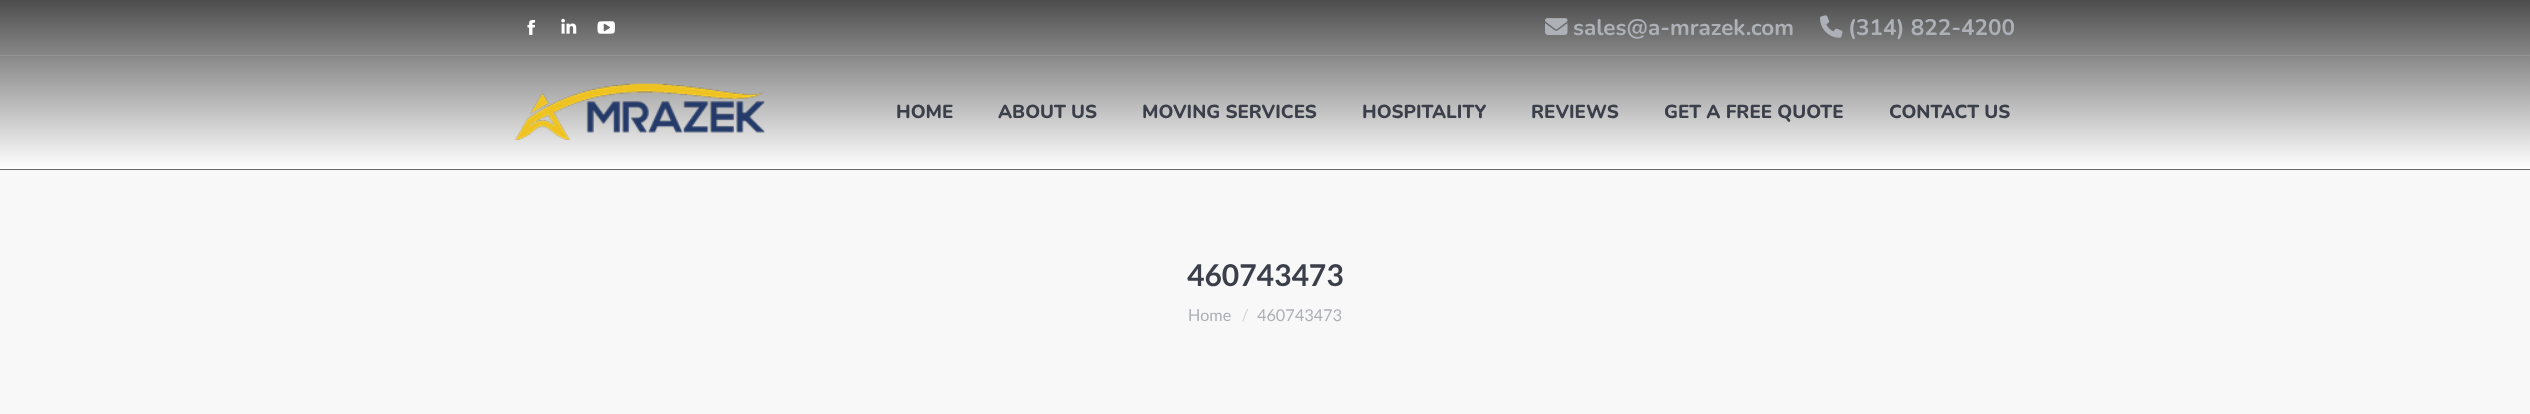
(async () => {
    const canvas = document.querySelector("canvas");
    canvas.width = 2530;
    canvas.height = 414;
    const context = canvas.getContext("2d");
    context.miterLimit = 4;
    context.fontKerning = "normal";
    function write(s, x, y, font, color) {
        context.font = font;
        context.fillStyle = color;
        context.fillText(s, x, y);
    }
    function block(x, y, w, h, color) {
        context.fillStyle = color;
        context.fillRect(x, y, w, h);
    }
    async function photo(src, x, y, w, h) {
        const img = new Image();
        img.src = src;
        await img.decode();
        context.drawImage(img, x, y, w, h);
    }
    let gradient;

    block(0, 0, 2530, 414, "rgb(248, 248, 249)");
    gradient = context.createLinearGradient(1265, 169, 1265, 0);
    gradient.addColorStop(0, "rgb(255, 255, 255)");
    gradient.addColorStop(1, "rgb(77, 77, 77)");
    context.fillStyle = gradient;
    context.fillRect(0, 0, 2530, 169);
    block(0, 169, 2530, 1, "rgb(104, 105, 108)");
    await photo("media/1.png", 527, 20, 8, 15);
    await photo("media/2.png", 561, 18, 16, 16);
    await photo("media/3.png", 597, 21, 18, 13);
    await photo("media/4.png", 1545, 18, 23, 17);
    write("sales@a-mrazek.com", 1573, 35, "bold 22.5px Nunito", "rgb(173, 176, 182)");
    await photo("media/5.png", 1820, 15, 23, 23);
    write("(314) 822-4200", 1848, 35, "bold 22.5px Nunito", "rgb(173, 176, 182)");
    block(0, 55, 2530, 1, "rgb(146, 147, 149)");
    await photo("media/6.png", 515, 83, 250, 57);
    write("HOME", 896, 118, "800 18.75px Nunito", "rgb(59, 63, 74)");
    write("ABOUT US", 998, 118, "800 18.75px Nunito", "rgb(59, 63, 74)");
    write("MOVING SERVICES", 1142, 118, "800 18.75px Nunito", "rgb(59, 63, 74)");
    write("HOSPITALITY", 1362, 118, "800 18.75px Nunito", "rgb(59, 63, 74)");
    write("REVIEWS", 1531, 118, "800 18.75px Nunito", "rgb(59, 63, 74)");
    write("GET A FREE QUOTE", 1664, 118, "800 18.75px Nunito", "rgb(59, 63, 74)");
    write("CONTACT US", 1889, 118, "800 18.75px Nunito", "rgb(59, 63, 74)");
    write("460743473", 1187, 286, "bold 30px Lato", "rgb(59, 63, 74)");
    write("Home", 1188, 321, "16.25px Lato", "rgb(173, 176, 182)");
    write("/", 1242, 321, "16.25px Lato", "rgb(211, 212, 216)");
    write("460743473", 1257, 321, "16.25px Lato", "rgb(173, 176, 182)");
})();
